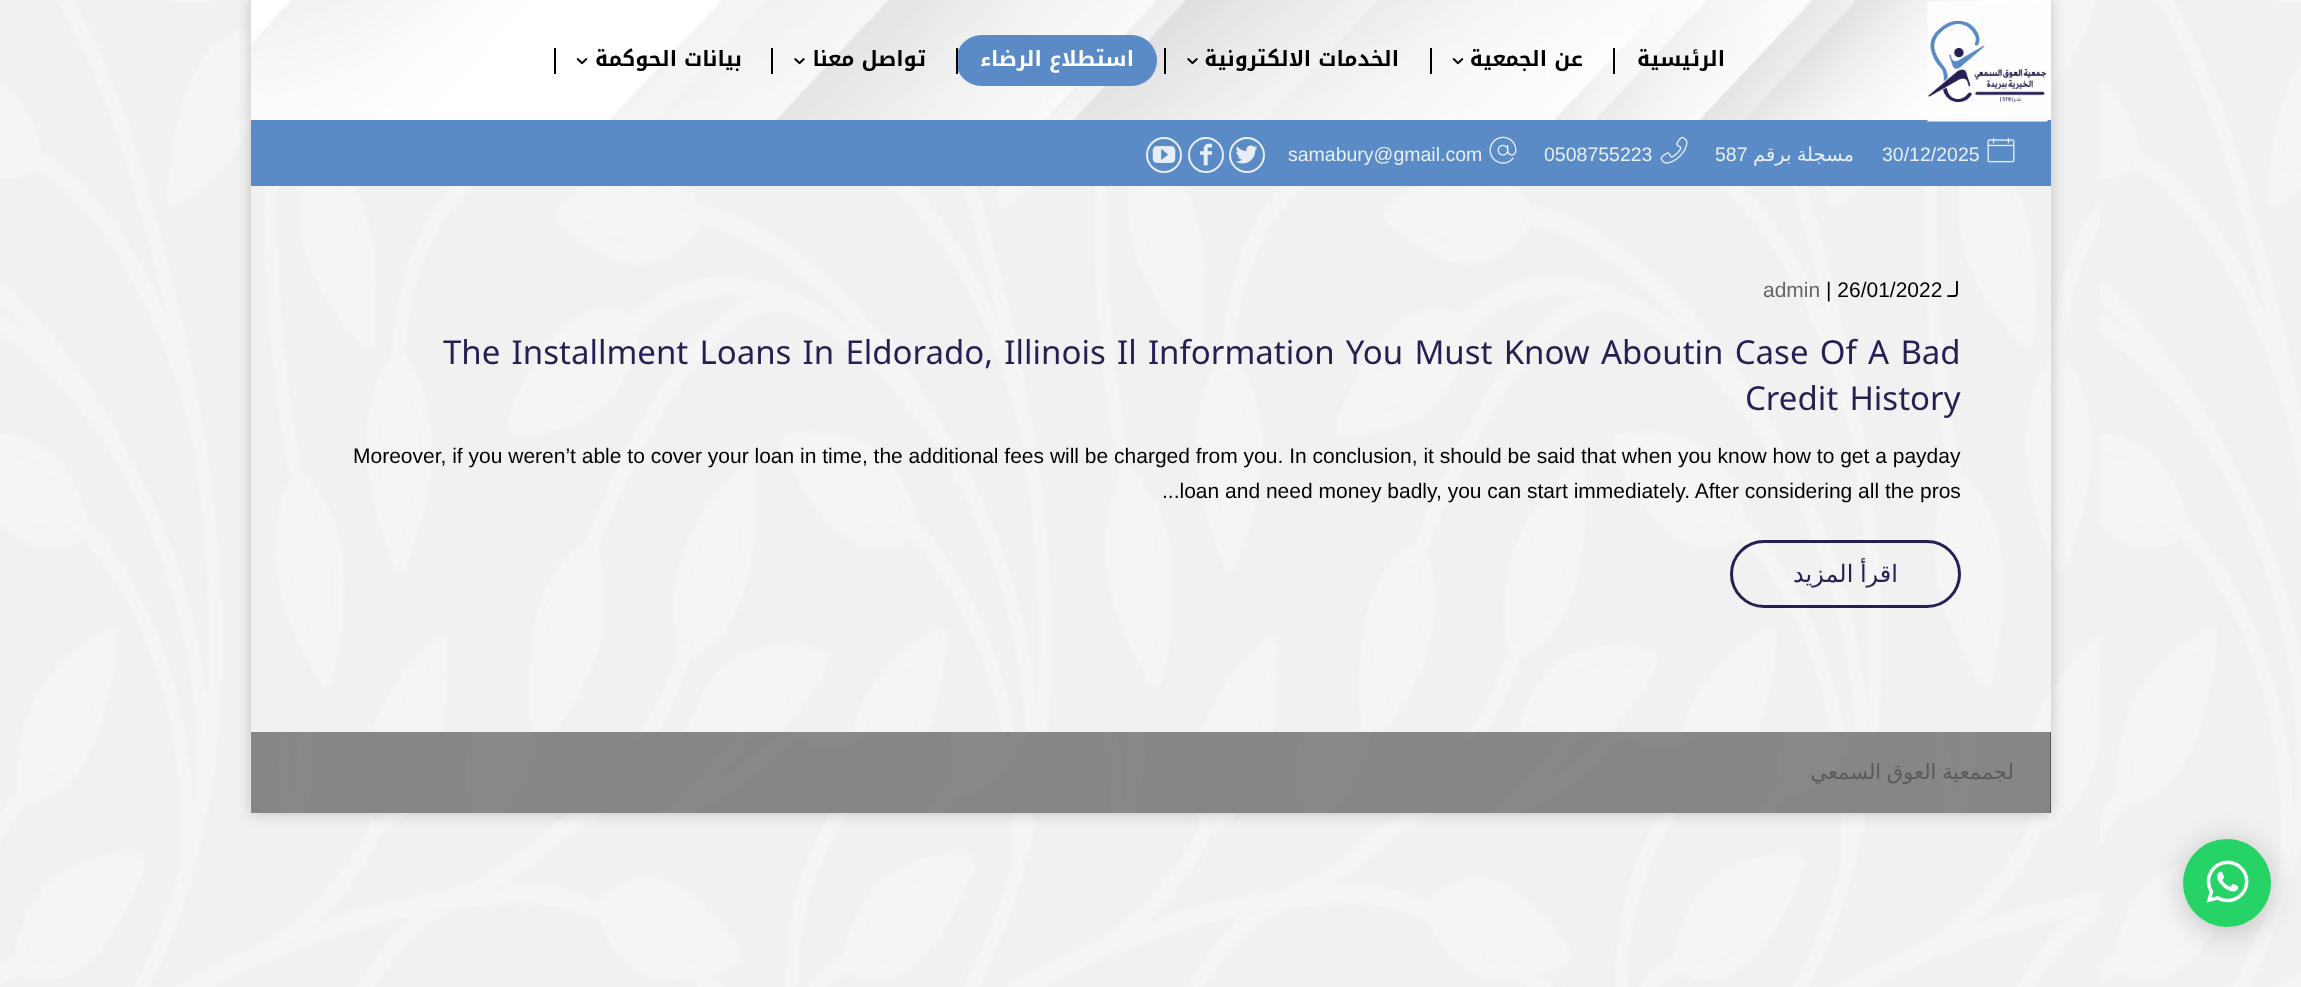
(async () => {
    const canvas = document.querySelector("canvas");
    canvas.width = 2301;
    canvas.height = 987;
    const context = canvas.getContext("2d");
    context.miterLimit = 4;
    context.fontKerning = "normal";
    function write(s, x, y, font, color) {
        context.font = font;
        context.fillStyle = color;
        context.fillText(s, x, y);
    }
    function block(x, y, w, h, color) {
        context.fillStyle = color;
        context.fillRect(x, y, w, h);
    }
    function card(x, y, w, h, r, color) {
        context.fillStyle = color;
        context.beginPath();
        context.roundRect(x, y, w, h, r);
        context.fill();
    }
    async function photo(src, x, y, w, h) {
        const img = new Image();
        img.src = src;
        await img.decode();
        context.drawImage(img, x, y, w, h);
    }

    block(0, 0, 2301, 987, "rgb(255, 255, 255)");
    await photo("media/1.png", 0, 0, 2301, 987);
    context.save();
    context.beginPath();
    context.moveTo(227, 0);
    context.lineTo(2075, 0);
    context.lineTo(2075, 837);
    context.lineTo(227, 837);
    context.closePath();
    context.moveTo(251, 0);
    context.lineTo(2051, 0);
    context.lineTo(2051, 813);
    context.lineTo(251, 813);
    context.closePath();
    context.clip("evenodd");
    context.fillStyle = "rgba(0, 0, 0, 0.2)";
    context.filter = "blur(7.5px)";
    context.beginPath();
    context.rect(251, 0, 1800, 813);
    context.fill();
    context.filter = "none";
    context.restore();
    block(251, 0, 1800, 120, "rgb(255, 255, 255)");
    await photo("media/2.png", 251, 0, 1733, 120);
    block(554, 48, 2, 26, "rgb(0, 0, 0)");
    await photo("media/3.png", 576, 58, 12, 7);
    context.direction = "rtl";
    write("بيانات الحوكمة", 742, 66, "bold 21px Noto Kufi Arabic", "rgb(0, 0, 0)");
    block(771, 48, 2, 26, "rgb(0, 0, 0)");
    await photo("media/4.png", 794, 58, 11, 7);
    write("تواصل معنا", 926, 66, "bold 21px Noto Kufi Arabic", "rgb(0, 0, 0)");
    card(956, 35, 201, 51, 25.5, "rgb(90, 139, 198)");
    block(956, 48, 2, 26, "rgb(0, 0, 0)");
    write("استطلاع الرضاء", 1134, 66, "bold 21px Noto Kufi Arabic", "rgb(255, 255, 255)");
    block(1164, 48, 2, 26, "rgb(0, 0, 0)");
    await photo("media/5.png", 1187, 58, 11, 7);
    write("الخدمات الالكترونية", 1399, 66, "bold 21px Noto Kufi Arabic", "rgb(0, 0, 0)");
    block(1430, 48, 2, 26, "rgb(0, 0, 0)");
    await photo("media/6.png", 1452, 58, 12, 7);
    write("عن الجمعية", 1583, 66, "bold 21px Noto Kufi Arabic", "rgb(0, 0, 0)");
    block(1613, 48, 2, 26, "rgb(0, 0, 0)");
    write("الرئيسية", 1725, 66, "bold 21px Noto Kufi Arabic", "rgb(0, 0, 0)");
    block(251, 120, 1800, 66, "rgb(90, 139, 198)");
    await photo("media/7.png", 1927, 1, 121, 121);
    context.beginPath();
    context.arc(1164, 155, 17, 0, Math.PI * 2);
    context.strokeStyle = "rgb(230, 238, 246)";
    context.lineWidth = 2;
    context.stroke();
    await photo("media/8.png", 1152, 146, 24, 17);
    context.beginPath();
    context.arc(1206, 155, 17, 0, Math.PI * 2);
    context.stroke();
    await photo("media/9.png", 1200, 143, 12, 23);
    context.beginPath();
    context.arc(1247, 155, 17, 0, Math.PI * 2);
    context.stroke();
    await photo("media/10.png", 1235, 145, 23, 19);
    context.direction = "ltr";
    write("samabury@gmail.com", 1288, 161, "19.5px Liberation Sans", "rgb(230, 238, 246)");
    await photo("media/11.png", 1489, 136, 28, 28);
    write("0508755223", 1544, 161, "19.5px Liberation Sans", "rgb(230, 238, 246)");
    await photo("media/12.png", 1660, 136, 28, 28);
    write("587", 1715, 161, "19.5px Liberation Sans", "rgb(230, 238, 246)");
    context.wordSpacing = "-1px";
    context.direction = "rtl";
    write("مسجلة برقم", 1854, 161, "19.5px DejaVu Sans", "rgb(230, 238, 246)");
    context.wordSpacing = "0px";
    context.direction = "ltr";
    write("30/12/2025", 1882, 161, "19.5px Liberation Sans", "rgb(230, 238, 246)");
    await photo("media/13.png", 1987, 138, 28, 25);
    write("admin", 1763, 297, "21px Liberation Sans", "rgb(102, 102, 102)");
    write("| 26/01/2022", 1826, 297, "21px Liberation Sans", "rgb(0, 0, 0)");
    context.direction = "rtl";
    write("لـ", 1960, 297, "21px DejaVu Sans", "rgb(0, 0, 0)");
    context.direction = "ltr";
    write("The Installment Loans In Eldorado, Illinois Il Information You Must Know Aboutin Case Of A Bad", 443, 364, "33px Noto Kufi Arabic", "rgb(38, 31, 82)");
    write("Credit History", 1745, 410, "33px Noto Kufi Arabic", "rgb(38, 31, 82)");
    write("Moreover, if you weren’t able to cover your loan in time, the additional fees will be charged from you. In conclusion, it should be said that when you know how to get a payday", 353, 463, "21px Liberation Sans", "rgb(0, 0, 0)");
    write("...loan and need money badly, you can start immediately. After considering all the pros", 1162, 498, "21px Liberation Sans", "rgb(0, 0, 0)");
    context.beginPath();
    context.roundRect(1731.5, 541.5, 228, 65, 32.5);
    context.strokeStyle = "rgb(38, 31, 82)";
    context.lineWidth = 3;
    context.stroke();
    context.wordSpacing = "-1px";
    context.direction = "rtl";
    write("اقرأ المزيد", 1898, 582, "24px DejaVu Sans", "rgb(38, 31, 82)");
    block(2050, 732, 1, 81, "rgb(56, 56, 56)");
    await photo("media/14.png", 250, 732, 1801, 81);
    block(251, 732, 1800, 81, "rgba(27, 27, 27, 0.5)");
    write("لجممعية العوق السمعي", 2014, 779, "21px DejaVu Sans", "rgb(92, 90, 90)");
    context.fillStyle = "rgba(0, 0, 0, 0.2)";
    context.filter = "blur(15px)";
    context.beginPath();
    context.roundRect(2183, 843, 88, 89, 44);
    context.fill();
    context.filter = "none";
    context.fillStyle = "rgb(37, 211, 102)";
    context.beginPath();
    context.arc(2227, 883, 44, 0, Math.PI * 2);
    context.fill();
    await photo("media/15.png", 2206, 860, 43, 43);
})();
